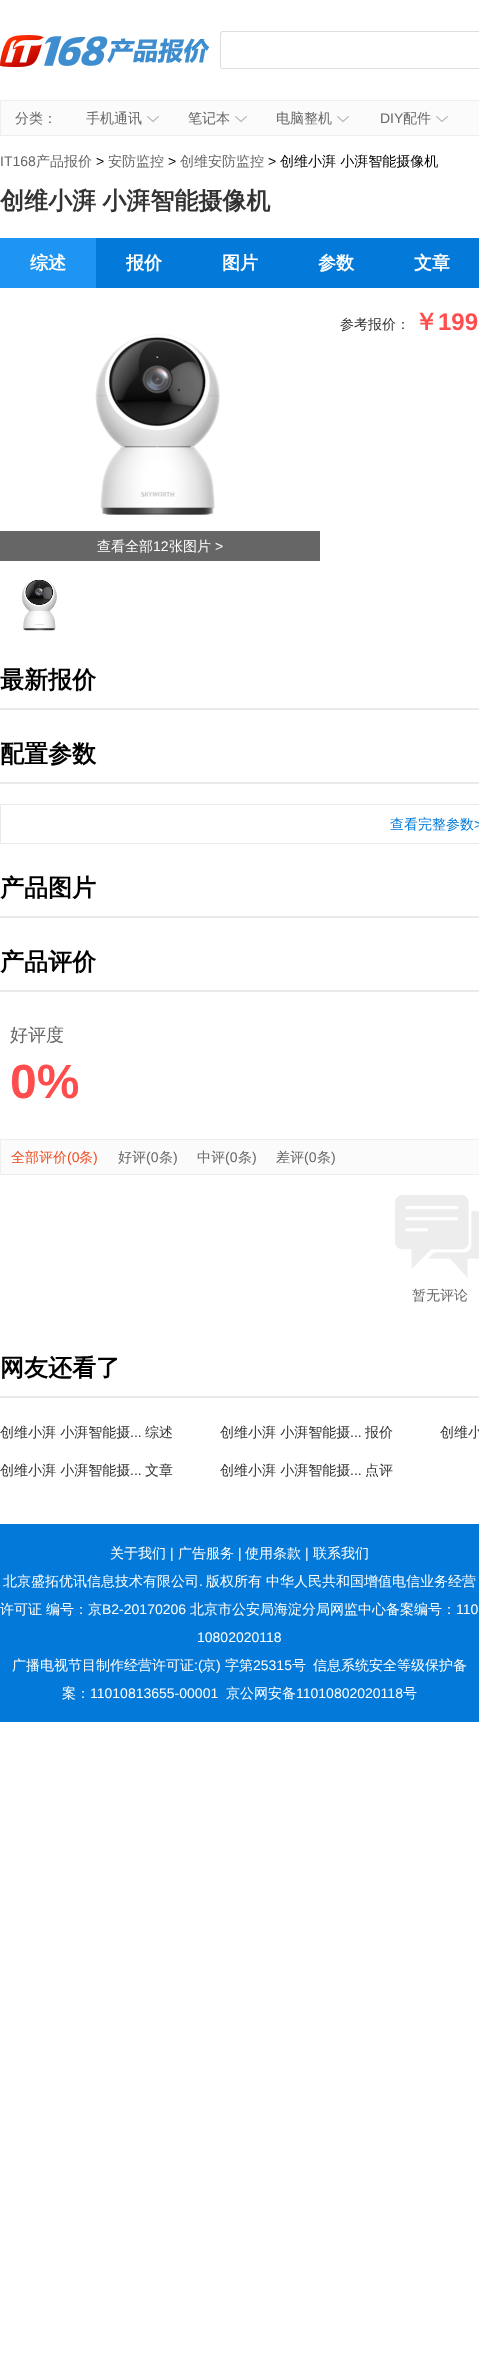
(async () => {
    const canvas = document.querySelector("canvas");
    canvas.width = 479;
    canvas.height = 2372;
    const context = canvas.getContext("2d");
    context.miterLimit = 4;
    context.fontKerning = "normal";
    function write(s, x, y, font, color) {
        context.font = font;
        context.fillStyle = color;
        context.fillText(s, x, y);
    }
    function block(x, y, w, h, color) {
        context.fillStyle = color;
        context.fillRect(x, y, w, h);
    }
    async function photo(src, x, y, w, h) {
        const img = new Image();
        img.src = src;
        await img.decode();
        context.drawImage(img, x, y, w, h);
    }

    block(0, 0, 479, 2372, "rgb(255, 255, 255)");
    await photo("media/1.png", 0, 35, 210, 32);
    context.fillStyle = "rgb(222, 222, 222)";
    context.beginPath();
    context.moveTo(223, 31);
    context.lineTo(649, 31);
    context.lineTo(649, 69);
    context.lineTo(223, 69);
    context.bezierCurveTo(221, 69, 220, 68, 220, 66);
    context.lineTo(220, 34);
    context.bezierCurveTo(220, 32, 221, 31, 223, 31);
    context.closePath();
    context.moveTo(223, 32);
    context.lineTo(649, 32);
    context.lineTo(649, 68);
    context.lineTo(223, 68);
    context.bezierCurveTo(222, 68, 221, 67, 221, 66);
    context.lineTo(221, 34);
    context.bezierCurveTo(221, 33, 222, 32, 223, 32);
    context.closePath();
    context.fill("evenodd");
    context.fillStyle = "rgb(251, 251, 251)";
    context.beginPath();
    context.rect(0.5, 100.5, 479, 35);
    context.fill();
    context.strokeStyle = "rgb(238, 238, 238)";
    context.stroke();
    write("分类：", 15, 123, "500 14px WenQuanYi Zen Hei", "rgb(102, 102, 102)");
    write("手机通讯", 86, 123, "500 14px WenQuanYi Zen Hei", "rgb(102, 102, 102)");
    await photo("media/2.png", 147, 116, 12, 6);
    write("笔记本", 188, 123, "500 14px WenQuanYi Zen Hei", "rgb(102, 102, 102)");
    await photo("media/2.png", 235, 116, 12, 6);
    write("电脑整机", 276, 123, "500 14px WenQuanYi Zen Hei", "rgb(102, 102, 102)");
    await photo("media/2.png", 337, 116, 12, 6);
    write("DIY", 380, 123, "14px Liberation Sans", "rgb(102, 102, 102)");
    write("配件", 403, 123, "500 14px WenQuanYi Zen Hei", "rgb(102, 102, 102)");
    await photo("media/2.png", 436, 116, 12, 6);
    write("IT168", 0, 166, "14px Liberation Sans", "rgb(102, 102, 102)");
    write("产品报价", 36, 166, "500 14px WenQuanYi Zen Hei", "rgb(102, 102, 102)");
    write(">", 96, 166, "14px Liberation Sans", "rgb(0, 0, 0)");
    write("安防监控", 108, 166, "500 14px WenQuanYi Zen Hei", "rgb(102, 102, 102)");
    write(">", 168, 166, "14px Liberation Sans", "rgb(0, 0, 0)");
    write("创维安防监控", 180, 166, "500 14px WenQuanYi Zen Hei", "rgb(102, 102, 102)");
    write(">", 268, 166, "14px Liberation Sans", "rgb(0, 0, 0)");
    write("创维小湃 小湃智能摄像机", 280, 166, "500 14px WenQuanYi Zen Hei", "rgb(0, 0, 0)");
    context.wordSpacing = "-1px";
    write("创维小湃 小湃智能摄像机", 0, 209, "bold 24px WenQuanYi Zen Hei", "rgb(51, 51, 51)");
    block(96, 238, 383, 50, "rgb(3, 122, 217)");
    block(0, 238, 96, 50, "rgb(31, 149, 243)");
    context.wordSpacing = "0px";
    write("综述", 30, 269, "bold 18px WenQuanYi Zen Hei", "rgb(255, 255, 255)");
    write("报价", 126, 269, "bold 18px WenQuanYi Zen Hei", "rgb(255, 255, 255)");
    write("图片", 222, 269, "bold 18px WenQuanYi Zen Hei", "rgb(255, 255, 255)");
    write("参数", 318, 269, "bold 18px WenQuanYi Zen Hei", "rgb(255, 255, 255)");
    write("文章", 414, 269, "bold 18px WenQuanYi Zen Hei", "rgb(255, 255, 255)");
    write("参考报价：", 340, 329, "500 14px WenQuanYi Zen Hei", "rgb(51, 51, 51)");
    write("￥", 414, 330, "bold 24px WenQuanYi Zen Hei", "rgb(255, 76, 76)");
    write("199", 438, 330, "bold 24px Liberation Sans", "rgb(255, 76, 76)");
    await photo("media/3.png", 95, 334, 125, 181);
    block(0, 531, 320, 30, "rgb(102, 102, 102)");
    write("查看全部", 97, 551, "500 14px WenQuanYi Zen Hei", "rgb(255, 255, 255)");
    write("12", 153, 551, "14px Liberation Sans", "rgb(255, 255, 255)");
    write("张图片", 169, 551, "500 14px WenQuanYi Zen Hei", "rgb(255, 255, 255)");
    write(">", 215, 551, "14px Liberation Sans", "rgb(255, 255, 255)");
    await photo("media/4.png", 21, 579, 36, 52);
    block(0, 708, 479, 2, "rgb(234, 234, 234)");
    write("最新报价", 0, 688, "bold 24px WenQuanYi Zen Hei", "rgb(0, 0, 0)");
    block(0, 782, 479, 2, "rgb(234, 234, 234)");
    write("配置参数", 0, 762, "bold 24px WenQuanYi Zen Hei", "rgb(0, 0, 0)");
    context.strokeStyle = "rgb(234, 234, 234)";
    context.strokeRect(0.5, 804.5, 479, 39);
    write("查看完整参数", 390, 829, "500 14px WenQuanYi Zen Hei", "rgb(3, 122, 217)");
    write(">", 474, 829, "14px Liberation Sans", "rgb(3, 122, 217)");
    block(0, 916, 479, 2, "rgb(234, 234, 234)");
    write("产品图片", 0, 896, "bold 24px WenQuanYi Zen Hei", "rgb(0, 0, 0)");
    block(0, 990, 479, 2, "rgb(234, 234, 234)");
    write("产品评价", 0, 970, "bold 24px WenQuanYi Zen Hei", "rgb(0, 0, 0)");
    write("好评度", 10, 1041, "500 18px WenQuanYi Zen Hei", "rgb(102, 102, 102)");
    write("0%", 10, 1098, "bold 48px Liberation Sans", "rgb(255, 76, 76)");
    context.fillStyle = "rgb(251, 251, 251)";
    context.beginPath();
    context.rect(0.5, 1139.5, 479, 35);
    context.fill();
    context.strokeStyle = "rgb(238, 238, 238)";
    context.stroke();
    write("全部评价", 11, 1162, "500 14px WenQuanYi Zen Hei", "rgb(239, 76, 33)");
    write("(0", 67, 1162, "14px Liberation Sans", "rgb(239, 76, 33)");
    write("条", 79, 1162, "500 14px WenQuanYi Zen Hei", "rgb(239, 76, 33)");
    write(")", 93, 1162, "14px Liberation Sans", "rgb(239, 76, 33)");
    write("好评", 118, 1162, "500 14px WenQuanYi Zen Hei", "rgb(102, 102, 102)");
    write("(0", 146, 1162, "14px Liberation Sans", "rgb(102, 102, 102)");
    write("条", 159, 1162, "500 14px WenQuanYi Zen Hei", "rgb(102, 102, 102)");
    write(")", 173, 1162, "14px Liberation Sans", "rgb(102, 102, 102)");
    write("中评", 197, 1162, "500 14px WenQuanYi Zen Hei", "rgb(102, 102, 102)");
    write("(0", 225, 1162, "14px Liberation Sans", "rgb(102, 102, 102)");
    write("条", 238, 1162, "500 14px WenQuanYi Zen Hei", "rgb(102, 102, 102)");
    write(")", 252, 1162, "14px Liberation Sans", "rgb(102, 102, 102)");
    write("差评", 276, 1162, "500 14px WenQuanYi Zen Hei", "rgb(102, 102, 102)");
    write("(0", 304, 1162, "14px Liberation Sans", "rgb(102, 102, 102)");
    write("条", 317, 1162, "500 14px WenQuanYi Zen Hei", "rgb(102, 102, 102)");
    write(")", 331, 1162, "14px Liberation Sans", "rgb(102, 102, 102)");
    await photo("media/5.png", 395, 1195, 84, 83);
    write("暂无评论", 412, 1300, "500 14px WenQuanYi Zen Hei", "rgb(102, 102, 102)");
    block(0, 1396, 479, 2, "rgb(234, 234, 234)");
    write("网友还看了", 0, 1376, "bold 24px WenQuanYi Zen Hei", "rgb(0, 0, 0)");
    write("创维小湃 小湃智能摄", 0, 1437, "500 14px WenQuanYi Zen Hei", "rgb(51, 51, 51)");
    write("...", 130, 1437, "14px Liberation Sans", "rgb(51, 51, 51)");
    write("综述", 145, 1437, "500 14px WenQuanYi Zen Hei", "rgb(51, 51, 51)");
    write("创维小湃 小湃智能摄", 220, 1437, "500 14px WenQuanYi Zen Hei", "rgb(51, 51, 51)");
    write("...", 350, 1437, "14px Liberation Sans", "rgb(51, 51, 51)");
    write("报价", 365, 1437, "500 14px WenQuanYi Zen Hei", "rgb(51, 51, 51)");
    write("创维小", 440, 1437, "500 14px WenQuanYi Zen Hei", "rgb(51, 51, 51)");
    write("创维小湃 小湃智能摄", 0, 1475, "500 14px WenQuanYi Zen Hei", "rgb(51, 51, 51)");
    write("...", 130, 1475, "14px Liberation Sans", "rgb(51, 51, 51)");
    write("文章", 145, 1475, "500 14px WenQuanYi Zen Hei", "rgb(51, 51, 51)");
    write("创维小湃 小湃智能摄", 220, 1475, "500 14px WenQuanYi Zen Hei", "rgb(51, 51, 51)");
    write("...", 350, 1475, "14px Liberation Sans", "rgb(51, 51, 51)");
    write("点评", 365, 1475, "500 14px WenQuanYi Zen Hei", "rgb(51, 51, 51)");
    block(0, 1524, 479, 198, "rgb(3, 122, 217)");
    write("关于我们", 110, 1558, "500 14px WenQuanYi Zen Hei", "rgb(255, 255, 255)");
    write("|", 170, 1558, "14px Liberation Sans", "rgb(255, 255, 255)");
    write("广告服务", 178, 1558, "500 14px WenQuanYi Zen Hei", "rgb(255, 255, 255)");
    write("|", 238, 1558, "14px Liberation Sans", "rgb(255, 255, 255)");
    write("使用条款", 245, 1558, "500 14px WenQuanYi Zen Hei", "rgb(255, 255, 255)");
    write("|", 305, 1558, "14px Liberation Sans", "rgb(255, 255, 255)");
    write("联系我们", 313, 1558, "500 14px WenQuanYi Zen Hei", "rgb(255, 255, 255)");
    write("北京盛拓优讯信息技术有限公司", 3, 1586, "500 14px WenQuanYi Zen Hei", "rgb(255, 255, 255)");
    write(".", 199, 1586, "14px Liberation Sans", "rgb(255, 255, 255)");
    write("版权所有", 206, 1586, "500 14px WenQuanYi Zen Hei", "rgb(255, 255, 255)");
    write("中华人民共和国增值电信业务经营", 266, 1586, "500 14px WenQuanYi Zen Hei", "rgb(255, 255, 255)");
    write("许可证", 0, 1614, "500 14px WenQuanYi Zen Hei", "rgb(255, 255, 255)");
    write("编号：京", 46, 1614, "500 14px WenQuanYi Zen Hei", "rgb(255, 255, 255)");
    write("B2-20170206", 102, 1614, "14px Liberation Sans", "rgb(255, 255, 255)");
    write("北京市公安局海淀分局网监中心备案编号：", 190, 1614, "500 14px WenQuanYi Zen Hei", "rgb(255, 255, 255)");
    write("110", 456, 1614, "14px Liberation Sans", "rgb(255, 255, 255)");
    write("10802020118", 197, 1642, "14px Liberation Sans", "rgb(255, 255, 255)");
    write("广播电视节目制作经营许可证", 12, 1670, "500 14px WenQuanYi Zen Hei", "rgb(255, 255, 255)");
    write(":(", 194, 1670, "14px Liberation Sans", "rgb(255, 255, 255)");
    write("京", 202, 1670, "500 14px WenQuanYi Zen Hei", "rgb(255, 255, 255)");
    write(")", 216, 1670, "14px Liberation Sans", "rgb(255, 255, 255)");
    write("字第", 225, 1670, "500 14px WenQuanYi Zen Hei", "rgb(255, 255, 255)");
    write("25315", 253, 1670, "14px Liberation Sans", "rgb(255, 255, 255)");
    write("号", 292, 1670, "500 14px WenQuanYi Zen Hei", "rgb(255, 255, 255)");
    write("信息系统安全等级保护备", 313, 1670, "500 14px WenQuanYi Zen Hei", "rgb(255, 255, 255)");
    write("案：", 62, 1698, "500 14px WenQuanYi Zen Hei", "rgb(255, 255, 255)");
    write("11010813655-00001", 90, 1698, "14px Liberation Sans", "rgb(255, 255, 255)");
    write("京公网安备", 226, 1698, "500 14px WenQuanYi Zen Hei", "rgb(255, 255, 255)");
    write("11010802020118", 296, 1698, "14px Liberation Sans", "rgb(255, 255, 255)");
    write("号", 403, 1698, "500 14px WenQuanYi Zen Hei", "rgb(255, 255, 255)");
})();
